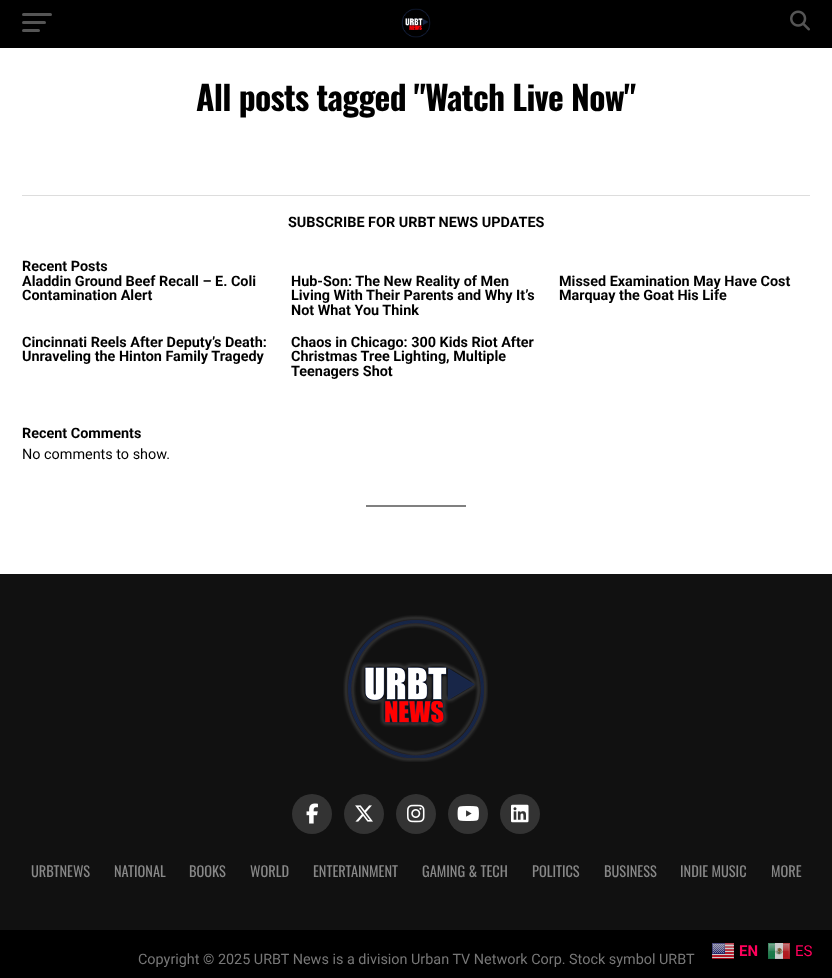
(async () => {
    const canvas = document.querySelector("canvas");
    canvas.width = 832;
    canvas.height = 978;
    const context = canvas.getContext("2d");
    context.miterLimit = 4;
    context.fontKerning = "normal";
    function write(s, x, y, font, color) {
        context.font = font;
        context.fillStyle = color;
        context.fillText(s, x, y);
    }
    function block(x, y, w, h, color) {
        context.fillStyle = color;
        context.fillRect(x, y, w, h);
    }
    function card(x, y, w, h, r, color) {
        context.fillStyle = color;
        context.beginPath();
        context.roundRect(x, y, w, h, r);
        context.fill();
    }
    async function photo(src, x, y, w, h) {
        const img = new Image();
        img.src = src;
        await img.decode();
        context.drawImage(img, x, y, w, h);
    }

    block(0, 0, 832, 978, "rgb(255, 255, 255)");
    block(0, 0, 832, 48, "rgb(0, 0, 0)");
    card(22, 13, 30, 3, 1.5, "rgb(85, 85, 85)");
    card(22, 21, 24, 3, 1.5, "rgb(85, 85, 85)");
    card(22, 29, 18, 3, 1.5, "rgb(85, 85, 85)");
    await photo("media/1.png", 401, 8, 30, 30);
    await photo("media/2.png", 790, 10, 20, 21);
    context.letterSpacing = "-0.7px";
    write("All posts tagged \"Watch Live Now\"", 196, 111, "bold 33.6px Oswald", "rgb(0, 0, 0)");
    block(22, 195, 788, 1, "rgb(221, 221, 221)");
    context.letterSpacing = "0px";
    write("SUBSCRIBE FOR URBT NEWS UPDATES", 288, 227, "bold 14.4px Roboto", "rgb(0, 0, 0)");
    write("Recent Posts", 22, 271, "bold 14.4px Roboto", "rgb(0, 0, 0)");
    write("Aladdin Ground Beef Recall – E. Coli", 22, 286, "bold 14.4px Roboto", "rgb(0, 0, 0)");
    write("Contamination Alert", 22, 300, "bold 14.4px Roboto", "rgb(0, 0, 0)");
    write("Hub-Son: The New Reality of Men", 291, 286, "bold 14.4px Roboto", "rgb(0, 0, 0)");
    write("Living With Their Parents and Why It’s", 291, 300, "bold 14.4px Roboto", "rgb(0, 0, 0)");
    write("Not What You Think", 291, 315, "bold 14.4px Roboto", "rgb(0, 0, 0)");
    write("Missed Examination May Have Cost", 559, 286, "bold 14.4px Roboto", "rgb(0, 0, 0)");
    write("Marquay the Goat His Life", 559, 300, "bold 14.4px Roboto", "rgb(0, 0, 0)");
    write("Cincinnati Reels After Deputy’s Death:", 22, 347, "bold 14.4px Roboto", "rgb(0, 0, 0)");
    write("Unraveling the Hinton Family Tragedy", 22, 361, "bold 14.4px Roboto", "rgb(0, 0, 0)");
    write("Chaos in Chicago: 300 Kids Riot After", 291, 347, "bold 14.4px Roboto", "rgb(0, 0, 0)");
    write("Christmas Tree Lighting, Multiple", 291, 361, "bold 14.4px Roboto", "rgb(0, 0, 0)");
    write("Teenagers Shot", 291, 376, "bold 14.4px Roboto", "rgb(0, 0, 0)");
    write("Recent Comments", 22, 438, "bold 14.4px Roboto", "rgb(0, 0, 0)");
    write("No comments to show.", 22, 459, "14.4px Roboto", "rgb(0, 0, 0)");
    block(366, 505, 100, 2, "rgb(128, 128, 128)");
    block(0, 574, 832, 356, "rgb(17, 17, 17)");
    await photo("media/3.png", 343, 615, 145, 147);
    context.fillStyle = "rgb(51, 51, 51)";
    context.beginPath();
    context.arc(312, 814, 20, 0, Math.PI * 2);
    context.fill();
    await photo("media/4.png", 306, 803, 12, 21);
    context.beginPath();
    context.arc(364, 814, 20, 0, Math.PI * 2);
    context.fill();
    await photo("media/5.png", 355, 805, 18, 17);
    context.beginPath();
    context.arc(416, 814, 20, 0, Math.PI * 2);
    context.fill();
    await photo("media/6.png", 407, 804, 18, 19);
    context.beginPath();
    context.arc(468, 814, 20, 0, Math.PI * 2);
    context.fill();
    await photo("media/7.png", 457, 806, 22, 15);
    context.beginPath();
    context.arc(520, 814, 20, 0, Math.PI * 2);
    context.fill();
    await photo("media/8.png", 511, 804, 18, 19);
    write("URBTNEWS", 31, 877, "14.4px Oswald", "rgb(136, 136, 136)");
    write("NATIONAL", 114, 877, "14.4px Oswald", "rgb(136, 136, 136)");
    write("BOOKS", 189, 877, "14.4px Oswald", "rgb(136, 136, 136)");
    write("WORLD", 250, 877, "14.4px Oswald", "rgb(136, 136, 136)");
    write("ENTERTAINMENT", 313, 877, "14.4px Oswald", "rgb(136, 136, 136)");
    write("GAMING & TECH", 422, 877, "14.4px Oswald", "rgb(136, 136, 136)");
    write("POLITICS", 532, 877, "14.4px Oswald", "rgb(136, 136, 136)");
    write("BUSINESS", 604, 877, "14.4px Oswald", "rgb(136, 136, 136)");
    write("INDIE MUSIC", 680, 877, "14.4px Oswald", "rgb(136, 136, 136)");
    write("MORE", 771, 877, "14.4px Oswald", "rgb(136, 136, 136)");
    block(0, 930, 832, 48, "rgb(0, 0, 0)");
    write("Copyright © 2025 URBT News is a division Urban TV Network Corp. Stock symbol URBT", 138, 964, "14.4px Roboto", "rgb(119, 119, 119)");
    await photo("media/9.png", 712, 943, 22, 16);
    write("EN", 739, 956, "bold 15px Roboto", "rgb(255, 0, 91)");
    await photo("media/10.png", 768, 943, 22, 16);
    write("ES", 795, 956, "15px Roboto", "rgb(255, 0, 91)");
})();
